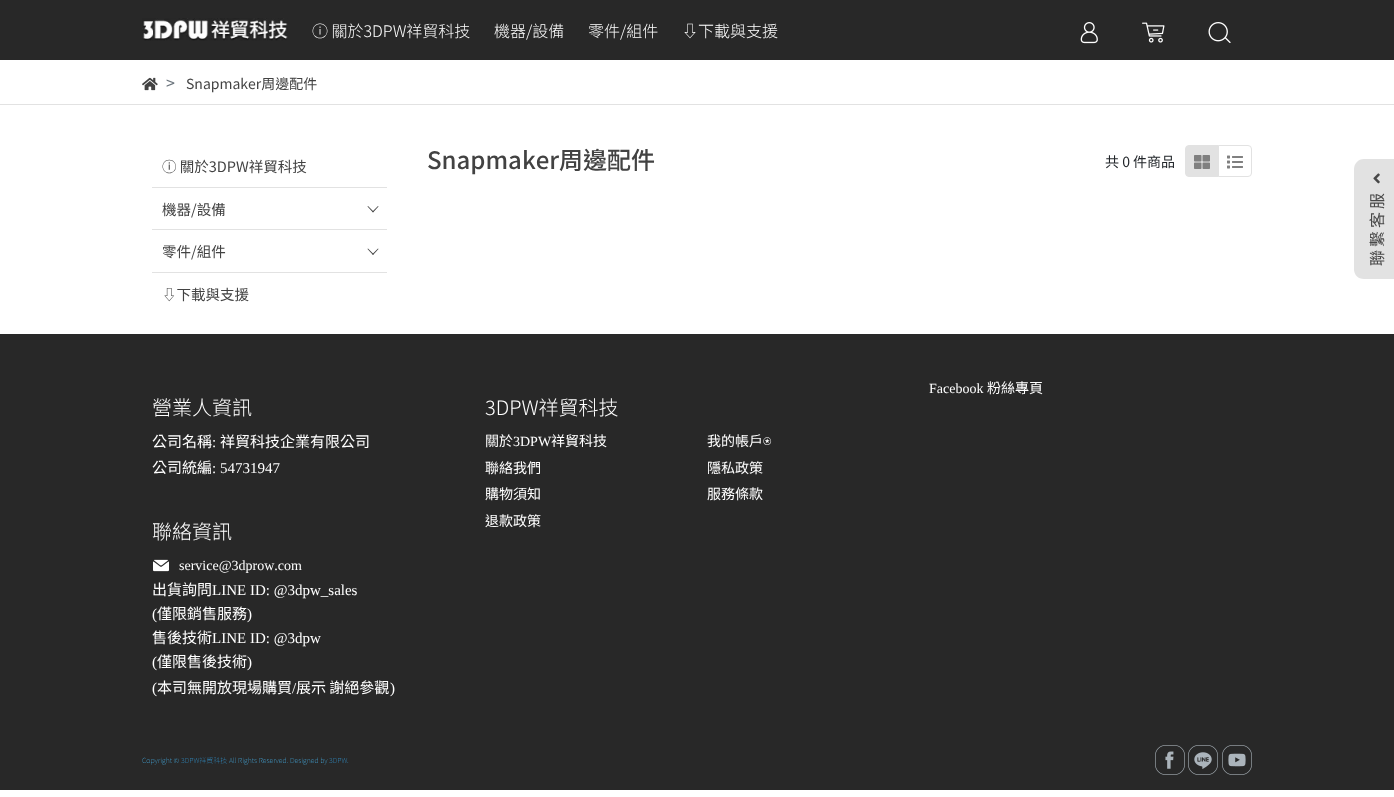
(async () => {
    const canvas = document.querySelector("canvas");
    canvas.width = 1394;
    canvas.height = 797;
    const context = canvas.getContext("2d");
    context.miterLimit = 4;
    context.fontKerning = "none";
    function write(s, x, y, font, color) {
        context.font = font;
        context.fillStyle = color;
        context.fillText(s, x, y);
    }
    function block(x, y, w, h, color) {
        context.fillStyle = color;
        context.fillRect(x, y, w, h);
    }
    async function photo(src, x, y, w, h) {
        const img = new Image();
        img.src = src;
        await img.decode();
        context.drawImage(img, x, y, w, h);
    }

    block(0, 0, 1394, 797, "rgb(255, 255, 255)");
    block(0, 0, 1394, 60, "rgb(40, 40, 40)");
    await photo("media/1.png", 142, 18, 146, 23);
    write("ⓘ 關於3DPW祥貿科技", 312, 37, "300 16px Noto Sans TC", "rgb(255, 255, 255)");
    write("機器/設備", 494, 37, "300 16px Noto Sans TC", "rgb(255, 255, 255)");
    write("零件/組件", 588, 37, "300 16px Noto Sans TC", "rgb(255, 255, 255)");
    write("⇩下載與支援", 682, 37, "300 16px Noto Sans TC", "rgb(255, 255, 255)");
    await photo("media/2.png", 1080, 22, 18, 22);
    await photo("media/3.png", 1142, 22, 23, 21);
    await photo("media/4.png", 1208, 22, 23, 21);
    block(0, 104, 1394, 1, "rgb(226, 226, 226)");
    await photo("media/5.png", 142, 77, 16, 14);
    write(">", 166, 89, "16px Noto Sans TC", "rgb(108, 117, 125)");
    write("Snapmaker周邊配件", 186, 89, "14px Noto Sans TC", "rgb(66, 66, 66)");
    block(152, 187, 235, 1, "rgb(226, 226, 226)");
    write("ⓘ 關於3DPW祥貿科技", 162, 172, "14.5px Noto Sans TC", "rgb(66, 66, 66)");
    block(152, 229, 235, 1, "rgb(226, 226, 226)");
    write("機器/設備", 162, 215, "14.5px Noto Sans TC", "rgb(66, 66, 66)");
    context.beginPath();
    context.moveTo(373, 212.5);
    context.lineTo(367.5, 206.5);
    context.lineTo(368, 206);
    context.lineTo(373.5, 211.5);
    context.closePath();
    context.fill();
    context.beginPath();
    context.moveTo(373, 212.5);
    context.lineTo(372.5, 211.5);
    context.lineTo(378, 206);
    context.lineTo(378.5, 206.5);
    context.closePath();
    context.fill();
    block(152, 272, 235, 1, "rgb(226, 226, 226)");
    write("零件/組件", 162, 257, "14.5px Noto Sans TC", "rgb(66, 66, 66)");
    context.beginPath();
    context.moveTo(373, 255);
    context.lineTo(367.5, 249);
    context.lineTo(368, 248.5);
    context.lineTo(373.5, 254);
    context.closePath();
    context.fill();
    context.beginPath();
    context.moveTo(373, 255);
    context.lineTo(372.5, 254);
    context.lineTo(378, 248.5);
    context.lineTo(378.5, 249);
    context.closePath();
    context.fill();
    write("⇩下載與支援", 162, 300, "14.5px Noto Sans TC", "rgb(66, 66, 66)");
    write("Snapmaker周邊配件", 427, 169, "500 24px Noto Sans TC", "rgb(66, 66, 66)");
    write("共 0 件商品", 1105, 167, "14px Noto Sans TC", "rgb(33, 37, 41)");
    context.fillStyle = "rgb(226, 226, 226)";
    context.beginPath();
    context.roundRect(1185.5, 145.5, 33, 31, [3.5, 0, 0, 3.5]);
    context.fill();
    context.strokeStyle = "rgb(226, 226, 226)";
    context.stroke();
    await photo("media/6.png", 1194, 155, 16, 14);
    context.fillStyle = "rgb(255, 255, 255)";
    context.beginPath();
    context.roundRect(1218.5, 145.5, 33, 31, [0, 3.5, 3.5, 0]);
    context.fill();
    context.stroke();
    await photo("media/7.png", 1227, 155, 16, 14);
    context.fillStyle = "rgb(226, 226, 226)";
    context.beginPath();
    context.moveTo(1354, 269);
    context.lineTo(1354, 169);
    context.bezierCurveTo(1354, 164, 1358, 159, 1364, 159);
    context.lineTo(1394, 159);
    context.lineTo(1394, 279);
    context.lineTo(1364, 279);
    context.bezierCurveTo(1358, 279, 1354, 275, 1354, 269);
    context.closePath();
    context.fill();
    await photo("media/8.png", 1373, 173, 7, 11);
    context.letterSpacing = "3px";
    context.font = "16px Noto Sans TC";
    context.fillStyle = "rgb(72, 72, 72)";
    context.save();
    context.translate(1383, 266);
    context.rotate(-90 * Math.PI / 180);
    context.fillText("聯繫客服", 0, 0);
    context.restore();
    block(0, 334, 1394, 456, "rgb(40, 40, 40)");
    context.letterSpacing = "0px";
    write("Facebook", 929, 393, "14px Liberation Serif", "rgb(255, 255, 255)");
    write("粉絲專頁", 987, 393, "14px Noto Sans CJK TC", "rgb(255, 255, 255)");
    write("營業人資訊", 152, 415, "300 20px Noto Sans TC", "rgb(255, 255, 255)");
    write("公司名稱", 152, 447, "15px Noto Sans CJK TC", "rgb(255, 255, 255)");
    write(":", 212, 447, "15px Liberation Serif", "rgb(255, 255, 255)");
    write("祥貿科技企業有限公司", 220, 447, "15px Noto Sans CJK TC", "rgb(255, 255, 255)");
    write("公司統編", 152, 473, "15px Noto Sans CJK TC", "rgb(255, 255, 255)");
    write(": 54731947", 212, 473, "15px Liberation Serif", "rgb(255, 255, 255)");
    write("聯絡資訊", 152, 539, "300 20px Noto Sans TC", "rgb(255, 255, 255)");
    await photo("media/9.png", 153, 559, 16, 13);
    write("service@3dprow.com", 179, 570, "14px Liberation Serif", "rgb(255, 255, 255)");
    write("出貨詢問", 152, 595, "15px Noto Sans CJK TC", "rgb(255, 255, 255)");
    write("LINE ID: @3dpw_sales", 212, 595, "15px Liberation Serif", "rgb(255, 255, 255)");
    write("(", 152, 619, "15px Liberation Serif", "rgb(255, 255, 255)");
    write("僅限銷售服務", 157, 619, "15px Noto Sans CJK TC", "rgb(255, 255, 255)");
    write(")", 247, 619, "15px Liberation Serif", "rgb(255, 255, 255)");
    write("售後技術", 152, 643, "15px Noto Sans CJK TC", "rgb(255, 255, 255)");
    write("LINE ID: @3dpw", 212, 643, "15px Liberation Serif", "rgb(255, 255, 255)");
    write("(", 152, 667, "15px Liberation Serif", "rgb(255, 255, 255)");
    write("僅限售後技術", 157, 667, "15px Noto Sans CJK TC", "rgb(255, 255, 255)");
    write(")", 247, 667, "15px Liberation Serif", "rgb(255, 255, 255)");
    write("(", 152, 693, "15px Liberation Serif", "rgb(255, 255, 255)");
    write("本司無開放現場購買", 157, 693, "15px Noto Sans CJK TC", "rgb(255, 255, 255)");
    write("/", 292, 693, "15px Liberation Serif", "rgb(255, 255, 255)");
    write("展示 謝絕參觀", 296, 693, "15px Noto Sans CJK TC", "rgb(255, 255, 255)");
    write(")", 390, 693, "15px Liberation Serif", "rgb(255, 255, 255)");
    write("3DPW祥貿科技", 485, 415, "300 20px Noto Sans TC", "rgb(255, 255, 255)");
    write("關於", 485, 446, "14px Noto Sans CJK TC", "rgb(255, 255, 255)");
    write("3DPW", 513, 446, "14px Liberation Serif", "rgb(255, 255, 255)");
    write("祥貿科技", 551, 446, "14px Noto Sans CJK TC", "rgb(255, 255, 255)");
    write("聯絡我們", 485, 473, "14px Noto Sans CJK TC", "rgb(255, 255, 255)");
    write("購物須知", 485, 499, "14px Noto Sans CJK TC", "rgb(255, 255, 255)");
    write("退款政策", 485, 526, "14px Noto Sans CJK TC", "rgb(255, 255, 255)");
    write("我的帳戶", 707, 446, "14px Noto Sans CJK TC", "rgb(255, 255, 255)");
    write("⍟", 763, 446, "14px FreeSerif", "rgb(255, 255, 255)");
    write("隱私政策", 707, 473, "14px Noto Sans CJK TC", "rgb(255, 255, 255)");
    write("服務條款", 707, 499, "14px Noto Sans CJK TC", "rgb(255, 255, 255)");
    write("Copyright ©", 142, 763, "100 7px Noto Sans TC", "rgb(72, 184, 242)");
    write("3DPW祥貿科技", 181, 763, "100 7px Noto Sans TC", "rgb(51, 164, 232)");
    write("All Rights Reserved. Designed by", 229, 763, "100 7px Noto Sans TC", "rgb(72, 184, 242)");
    write("3DPW", 329, 763, "100 7px Noto Sans TC", "rgb(51, 164, 232)");
    write(".", 347, 763, "100 7px Noto Sans TC", "rgb(72, 184, 242)");
    await photo("media/10.png", 1155, 745, 30, 30);
    await photo("media/11.png", 1188, 745, 30, 30);
    await photo("media/12.png", 1222, 745, 30, 30);
})();
